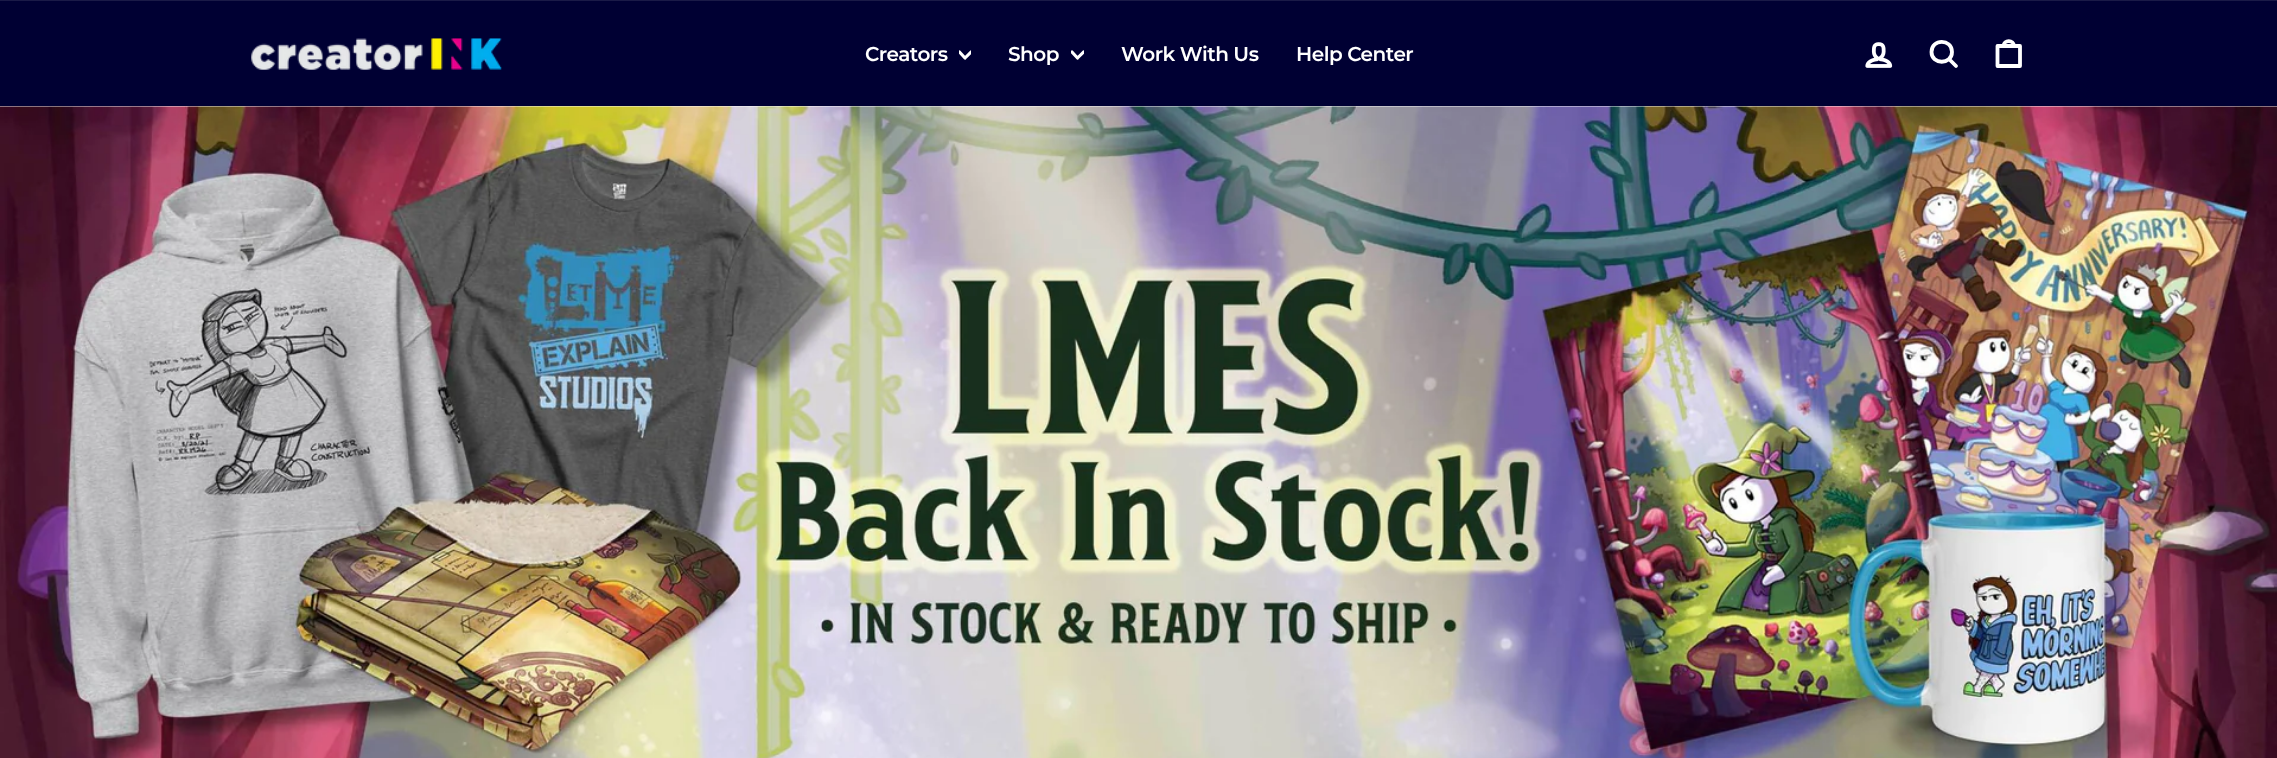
(async () => {
    const canvas = document.querySelector("canvas");
    canvas.width = 2277;
    canvas.height = 758;
    const context = canvas.getContext("2d");
    context.miterLimit = 4;
    context.fontKerning = "normal";
    function write(s, x, y, font, color) {
        context.font = font;
        context.fillStyle = color;
        context.fillText(s, x, y);
    }
    function block(x, y, w, h, color) {
        context.fillStyle = color;
        context.fillRect(x, y, w, h);
    }
    async function photo(src, x, y, w, h) {
        const img = new Image();
        img.src = src;
        await img.decode();
        context.drawImage(img, x, y, w, h);
    }

    block(0, 0, 2277, 758, "rgb(255, 255, 255)");
    block(0, 1, 2277, 105, "rgb(0, 0, 51)");
    block(0, 0, 2277, 1, "rgb(26, 26, 71)");
    await photo("media/1.png", 251, 38, 251, 32);
    context.letterSpacing = "-0.5px";
    write("Creators", 865, 61, "600 20px Montserrat", "rgb(255, 255, 255)");
    context.save();
    context.beginPath();
    context.rect(959, 49, 12, 12);
    context.clip();
    context.beginPath();
    context.moveTo(959.5, 52);
    context.lineTo(965, 58);
    context.lineTo(971, 52);
    context.strokeStyle = "rgb(255, 255, 255)";
    context.lineWidth = 3.1;
    context.lineCap = "round";
    context.lineJoin = "round";
    context.stroke();
    context.restore();
    write("Shop", 1008, 61, "600 20px Montserrat", "rgb(255, 255, 255)");
    context.save();
    context.beginPath();
    context.rect(1071, 49, 13, 12);
    context.clip();
    context.beginPath();
    context.moveTo(1072, 52);
    context.lineTo(1077.5, 58);
    context.lineTo(1083.5, 52);
    context.strokeStyle = "rgb(255, 255, 255)";
    context.lineWidth = 3.1;
    context.lineCap = "round";
    context.lineJoin = "round";
    context.stroke();
    context.restore();
    write("Work With Us", 1121, 61, "600 20px Montserrat", "rgb(255, 255, 255)");
    write("Help Center", 1296, 61, "600 20px Montserrat", "rgb(255, 255, 255)");
    await photo("media/2.png", 1865, 42, 28, 26);
    context.beginPath();
    context.moveTo(1952, 52);
    context.bezierCurveTo(1952, 65, 1931.5, 65, 1931.5, 52);
    context.bezierCurveTo(1931.5, 38.5, 1952, 38.5, 1952, 52);
    context.closePath();
    context.moveTo(1956, 66);
    context.lineTo(1949, 59);
    context.strokeStyle = "rgb(255, 255, 255)";
    context.lineWidth = 3.8;
    context.lineCap = "round";
    context.lineJoin = "round";
    context.stroke();
    context.beginPath();
    context.moveTo(1997.5, 46);
    context.lineTo(2020, 46);
    context.lineTo(2020, 66);
    context.lineTo(1997.5, 66);
    context.closePath();
    context.moveTo(2003.5, 46);
    context.bezierCurveTo(2003.5, 39.5, 2014, 39.5, 2014, 46);
    context.stroke();
    await photo("media/3.png", 0, 106, 2277, 652);
})();
